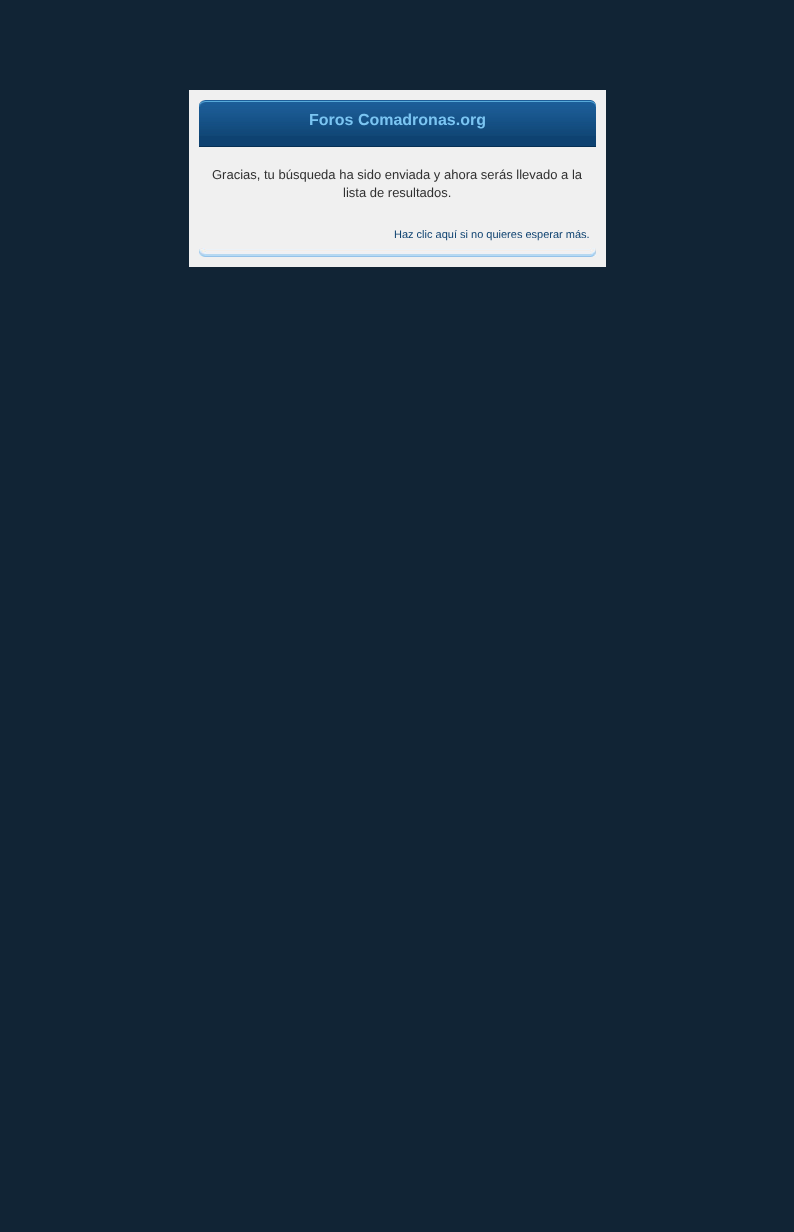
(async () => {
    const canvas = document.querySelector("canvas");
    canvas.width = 794;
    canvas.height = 1232;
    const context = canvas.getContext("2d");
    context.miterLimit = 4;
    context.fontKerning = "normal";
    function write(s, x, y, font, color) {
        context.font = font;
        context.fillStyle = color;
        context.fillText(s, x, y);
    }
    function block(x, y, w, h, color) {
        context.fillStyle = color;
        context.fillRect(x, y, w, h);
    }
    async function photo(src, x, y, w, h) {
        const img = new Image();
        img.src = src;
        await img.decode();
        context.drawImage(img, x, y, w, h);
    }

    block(0, 0, 794, 1232, "rgb(17, 36, 53)");
    block(189, 90, 417, 177, "rgb(240, 240, 240)");
    block(199, 136, 397, 10, "rgb(14, 66, 113)");
    await photo("media/1.png", 199, 100, 397, 36);
    block(199, 146, 397, 1, "rgb(6, 48, 85)");
    await photo("media/2.png", 199, 100, 7, 7);
    await photo("media/3.png", 590, 100, 6, 7);
    write("Foros Comadronas.org", 309, 125, "bold 16px Liberation Sans", "rgb(123, 197, 242)");
    write("Gracias, tu búsqueda ha sido enviada y ahora serás llevado a la", 212, 179, "13px Liberation Sans", "rgb(48, 48, 48)");
    write("lista de resultados.", 343, 197, "13px Liberation Sans", "rgb(48, 48, 48)");
    write("Haz clic aquí si no quieres esperar más.", 394, 238, "11px Liberation Sans", "rgb(14, 66, 112)");
    await photo("media/4.png", 206, 249, 384, 8);
    await photo("media/5.png", 199, 248, 7, 9);
    await photo("media/6.png", 590, 248, 6, 9);
})();
